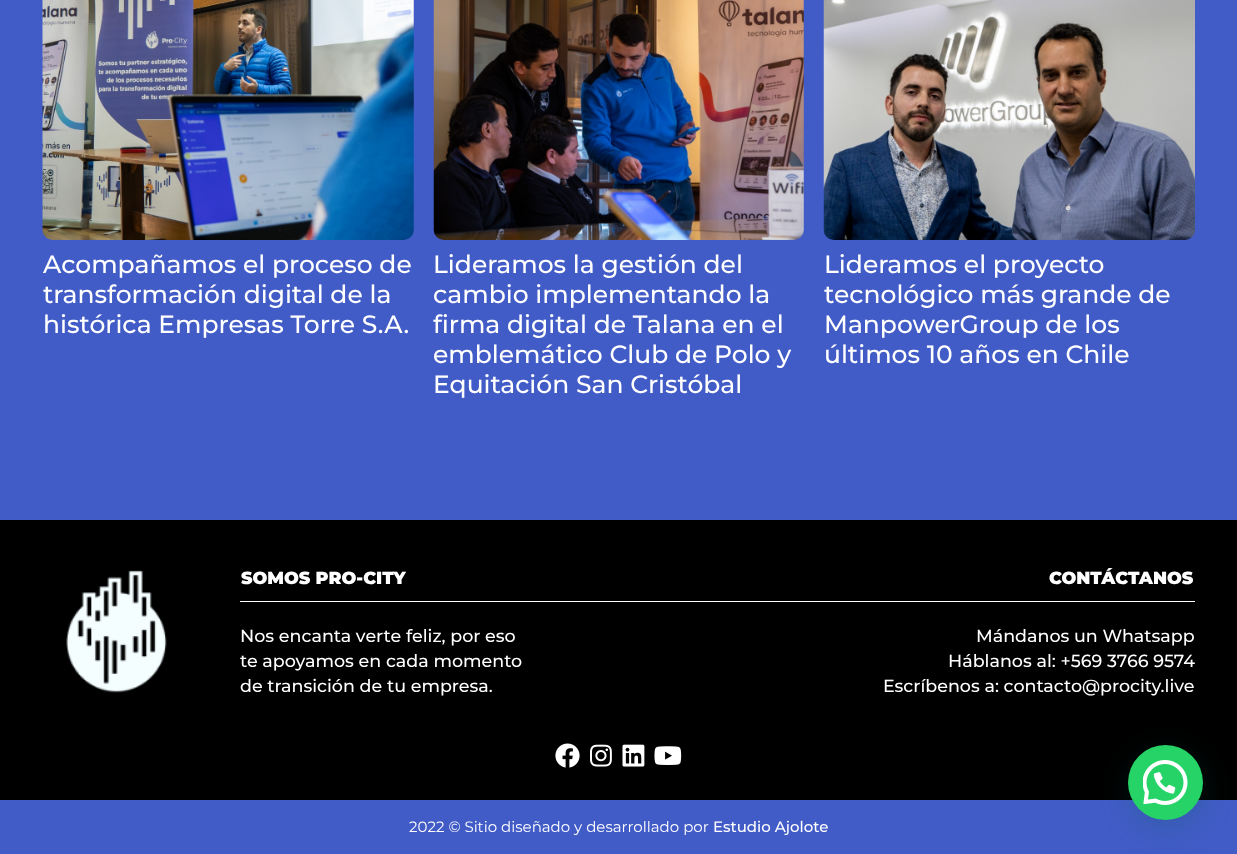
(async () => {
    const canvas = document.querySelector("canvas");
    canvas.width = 1237;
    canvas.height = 854;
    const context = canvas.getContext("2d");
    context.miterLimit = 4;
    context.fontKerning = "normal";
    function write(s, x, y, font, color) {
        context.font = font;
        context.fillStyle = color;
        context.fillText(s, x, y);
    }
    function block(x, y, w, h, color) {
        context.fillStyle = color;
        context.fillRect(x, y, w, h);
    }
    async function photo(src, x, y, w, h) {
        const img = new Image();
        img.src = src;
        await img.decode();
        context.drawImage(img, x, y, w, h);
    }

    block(0, 0, 1237, 854, "rgb(66, 92, 199)");
    await photo("media/1.png", 42, 0, 372, 240);
    write("Acompañamos el proceso de", 43, 273, "500 25px Montserrat", "rgb(255, 255, 255)");
    write("transformación digital de la", 43, 303, "500 25px Montserrat", "rgb(255, 255, 255)");
    write("histórica Empresas Torre S.A.", 43, 333, "500 25px Montserrat", "rgb(255, 255, 255)");
    await photo("media/2.png", 433, 0, 371, 240);
    write("Lideramos la gestión del", 433, 273, "500 25px Montserrat", "rgb(255, 255, 255)");
    write("cambio implementando la", 433, 303, "500 25px Montserrat", "rgb(255, 255, 255)");
    write("firma digital de Talana en el", 433, 333, "500 25px Montserrat", "rgb(255, 255, 255)");
    write("emblemático Club de Polo y", 433, 363, "500 25px Montserrat", "rgb(255, 255, 255)");
    write("Equitación San Cristóbal", 433, 393, "500 25px Montserrat", "rgb(255, 255, 255)");
    await photo("media/3.png", 823, 0, 372, 240);
    write("Lideramos el proyecto", 824, 273, "500 25px Montserrat", "rgb(255, 255, 255)");
    write("tecnológico más grande de", 824, 303, "500 25px Montserrat", "rgb(255, 255, 255)");
    write("ManpowerGroup de los", 824, 333, "500 25px Montserrat", "rgb(255, 255, 255)");
    write("últimos 10 años en Chile", 824, 363, "500 25px Montserrat", "rgb(255, 255, 255)");
    block(0, 520, 1237, 280, "rgb(0, 0, 0)");
    await photo("media/4.png", 66, 570, 101, 123);
    block(240, 601, 955, 1, "rgb(255, 255, 255)");
    write("SOMOS PRO-CITY", 241, 584, "900 17.5px Montserrat", "rgb(255, 255, 255)");
    write("Nos encanta verte feliz, por eso", 240, 642, "500 17.5px Montserrat", "rgb(255, 255, 255)");
    write("te apoyamos en cada momento", 240, 667, "500 17.5px Montserrat", "rgb(255, 255, 255)");
    write("de transición de tu empresa.", 240, 692, "500 17.5px Montserrat", "rgb(255, 255, 255)");
    write("CONTÁCTANOS", 1049, 584, "900 17.5px Montserrat", "rgb(255, 255, 255)");
    write("Mándanos un Whatsapp", 976, 642, "500 17.5px Montserrat", "rgb(255, 255, 255)");
    write("Háblanos al: +569 3766 9574", 948, 667, "500 17.5px Montserrat", "rgb(255, 255, 255)");
    write("Escríbenos a: contacto@procity.live", 883, 692, "500 17.5px Montserrat", "rgb(255, 255, 255)");
    await photo("media/5.png", 555, 743, 25, 25);
    await photo("media/6.png", 590, 744, 22, 23);
    await photo("media/7.png", 622, 744, 23, 23);
    await photo("media/8.png", 654, 746, 28, 19);
    write("2022 © Sitio diseñado y desarrollado por", 409, 832, "15px Montserrat", "rgb(255, 255, 255)");
    write("Estudio Ajolote", 713, 832, "500 15px Montserrat", "rgb(255, 255, 255)");
    context.fillStyle = "rgba(7, 94, 84, 0.24)";
    context.filter = "blur(15px)";
    context.beginPath();
    context.roundRect(1129, 753, 75, 75, 37.5);
    context.fill();
    context.filter = "none";
    context.fillStyle = "rgb(37, 211, 102)";
    context.beginPath();
    context.arc(1165.5, 782.5, 37.5, 0, Math.PI * 2);
    context.fill();
    await photo("media/9.png", 1143, 760, 45, 45);
})();
